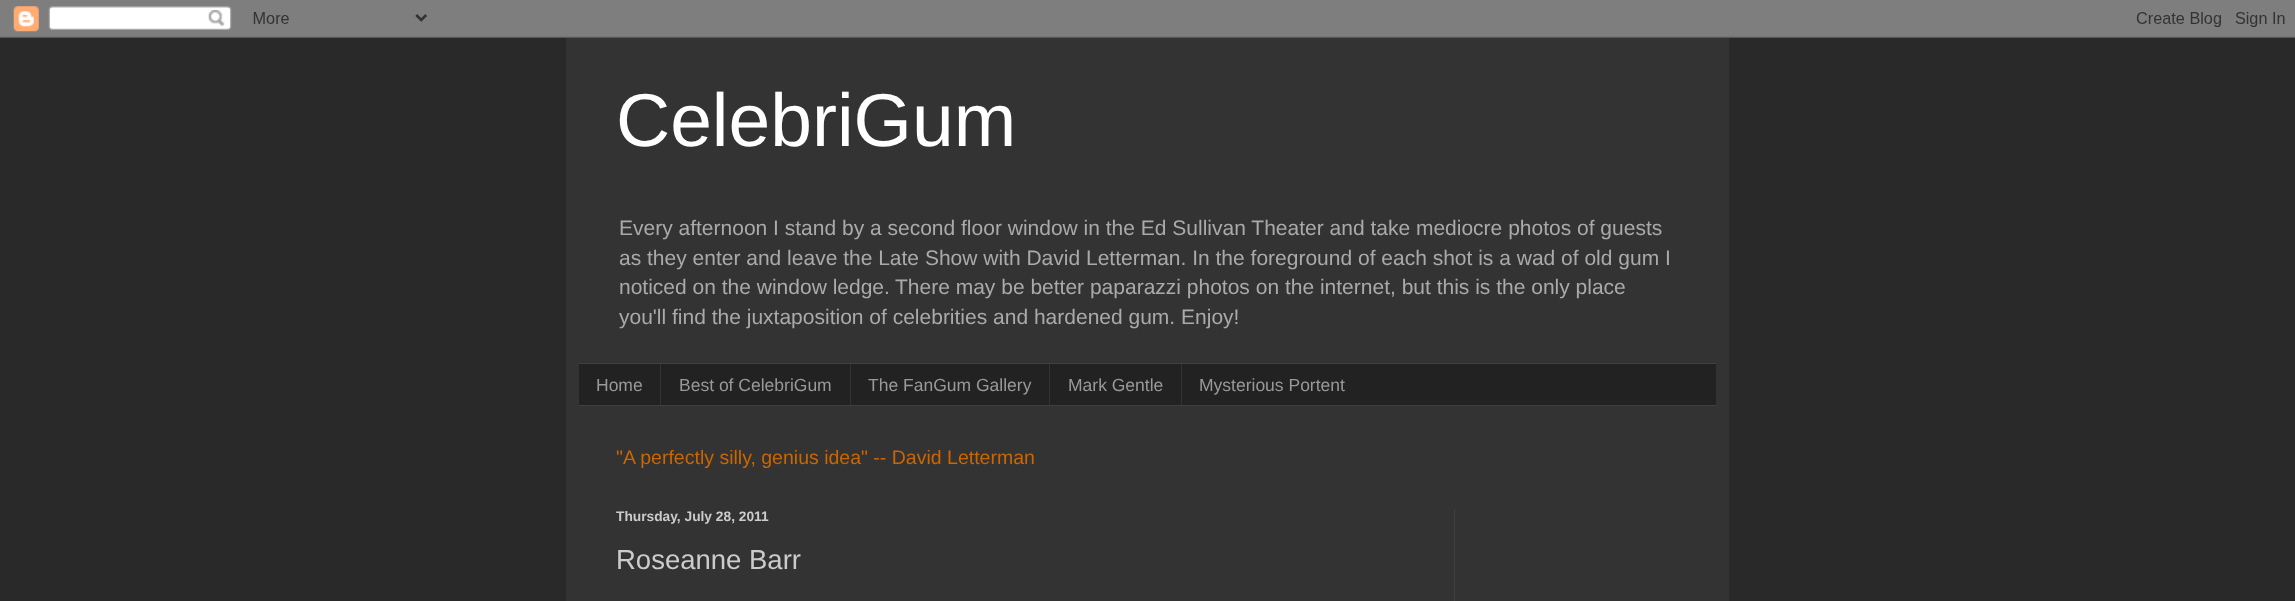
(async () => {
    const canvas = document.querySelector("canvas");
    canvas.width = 2295;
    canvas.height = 601;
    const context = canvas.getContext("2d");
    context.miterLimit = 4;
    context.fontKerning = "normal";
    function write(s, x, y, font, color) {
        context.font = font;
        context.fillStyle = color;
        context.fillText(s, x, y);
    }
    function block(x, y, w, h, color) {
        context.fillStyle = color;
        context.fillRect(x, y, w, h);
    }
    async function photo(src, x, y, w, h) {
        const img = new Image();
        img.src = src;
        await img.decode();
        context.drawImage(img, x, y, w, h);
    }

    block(0, 0, 2295, 601, "rgb(41, 41, 41)");
    await photo("media/1.png", 0, 0, 2295, 38);
    block(566, 38, 1163, 563, "rgb(51, 51, 51)");
    write("CelebriGum", 616, 146, "75px Liberation Sans", "rgb(255, 255, 255)");
    write("Every afternoon I stand by a second floor window in the Ed Sullivan Theater and take mediocre photos of guests", 619, 235, "21px Liberation Sans", "rgb(170, 170, 170)");
    write("as they enter and leave the Late Show with David Letterman. In the foreground of each shot is a wad of old gum I", 619, 265, "21px Liberation Sans", "rgb(170, 170, 170)");
    write("noticed on the window ledge.", 619, 294, "21px Liberation Sans", "rgb(170, 170, 170)");
    write("There may be better paparazzi photos on the internet, but this is the only place", 895, 294, "21px Liberation Sans", "rgb(170, 170, 170)");
    write("you'll find the juxtaposition of celebrities and hardened gum. Enjoy!", 619, 324, "21px Liberation Sans", "rgb(170, 170, 170)");
    block(579, 364, 1137, 41, "rgb(34, 34, 34)");
    block(579, 363, 1137, 1, "rgb(64, 64, 64)");
    block(579, 405, 1137, 1, "rgb(64, 64, 64)");
    write("Home", 596, 391, "17.5px Liberation Sans", "rgb(153, 153, 153)");
    block(660, 364, 1, 41, "rgb(51, 51, 51)");
    write("Best of CelebriGum", 679, 391, "17.5px Liberation Sans", "rgb(153, 153, 153)");
    block(850, 364, 1, 41, "rgb(51, 51, 51)");
    write("The FanGum Gallery", 868, 391, "17.5px Liberation Sans", "rgb(153, 153, 153)");
    block(1049, 364, 1, 41, "rgb(51, 51, 51)");
    write("Mark Gentle", 1068, 391, "17.5px Liberation Sans", "rgb(153, 153, 153)");
    block(1181, 364, 1, 41, "rgb(51, 51, 51)");
    write("Mysterious Portent", 1199, 391, "17.5px Liberation Sans", "rgb(153, 153, 153)");
    write("\"A perfectly silly, genius idea\" -- David Letterman", 616, 464, "19.5px Liberation Sans", "rgb(204, 102, 0)");
    write("Thursday, July 28, 2011", 616, 521, "bold 13.75px Liberation Sans", "rgb(204, 204, 204)");
    write("Roseanne Barr", 616, 569, "27.5px Liberation Sans", "rgb(204, 204, 204)");
    block(1454, 509, 1, 92, "rgb(64, 64, 64)");
})();
